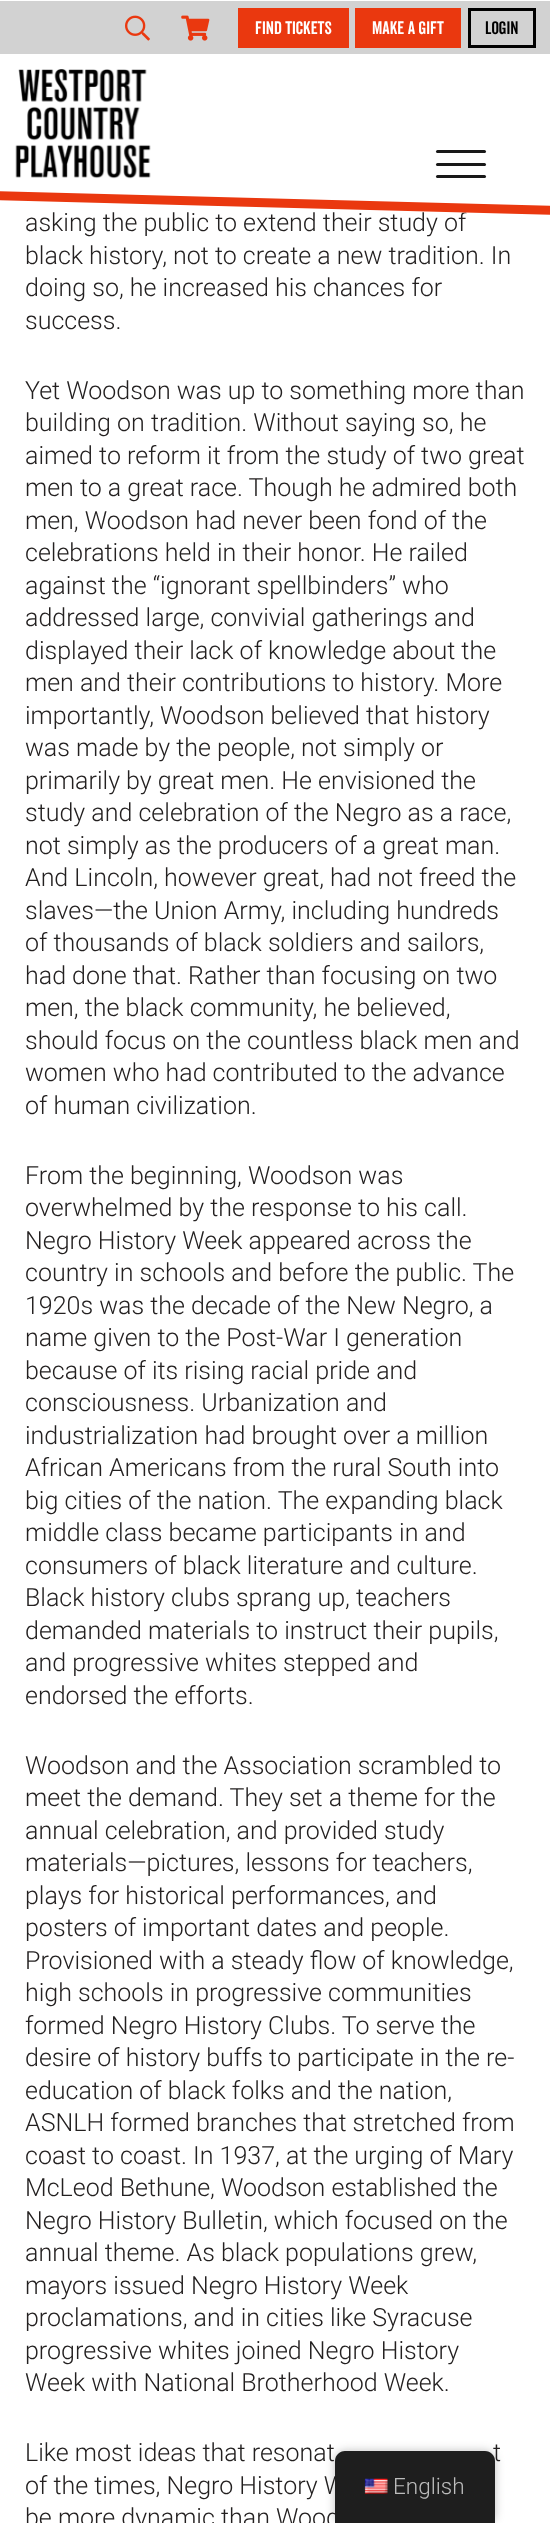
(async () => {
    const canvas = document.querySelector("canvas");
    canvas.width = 550;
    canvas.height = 2523;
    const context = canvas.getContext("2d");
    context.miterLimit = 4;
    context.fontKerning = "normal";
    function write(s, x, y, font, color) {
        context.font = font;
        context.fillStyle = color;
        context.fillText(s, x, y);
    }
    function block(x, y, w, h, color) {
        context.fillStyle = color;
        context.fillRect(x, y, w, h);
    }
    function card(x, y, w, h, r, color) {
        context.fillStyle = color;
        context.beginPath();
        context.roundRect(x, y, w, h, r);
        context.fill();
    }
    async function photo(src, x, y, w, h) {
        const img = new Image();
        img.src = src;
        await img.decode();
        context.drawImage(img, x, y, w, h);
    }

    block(0, 0, 550, 2523, "rgb(255, 255, 255)");
    block(0, 1, 550, 53, "rgb(210, 210, 210)");
    await photo("media/1.png", 125, 15, 25, 26);
    await photo("media/2.png", 181, 15, 29, 26);
    block(238, 8, 111, 40, "rgb(234, 56, 15)");
    write("FIND TICKETS", 255, 34, "17.5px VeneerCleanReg", "rgb(255, 255, 255)");
    block(355, 8, 106, 40, "rgb(234, 56, 15)");
    write("MAKE A GIFT", 372, 34, "17.5px VeneerCleanReg", "rgb(255, 255, 255)");
    context.strokeStyle = "rgb(0, 0, 0)";
    context.lineWidth = 3;
    context.strokeRect(469.5, 9.5, 65, 37);
    write("LOGIN", 485, 34, "17.5px VeneerCleanReg", "rgb(0, 0, 0)");
    write("asking the public to extend their study of", 25, 231, "300 25px Roboto", "rgb(35, 32, 32)");
    context.fillStyle = "rgb(255, 255, 255)";
    context.beginPath();
    context.moveTo(-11, 75);
    context.lineTo(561, 90);
    context.lineTo(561, 215);
    context.lineTo(-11, 200);
    context.closePath();
    context.fill();
    await photo("media/3.png", 15, 69, 136, 110);
    card(436, 163, 50, 3, 1.5, "rgb(24, 24, 24)");
    card(436, 150, 50, 3, 1.5, "rgb(24, 24, 24)");
    card(436, 175, 50, 3, 1.5, "rgb(24, 24, 24)");
    context.fillStyle = "rgb(234, 56, 15)";
    context.beginPath();
    context.moveTo(-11, 191);
    context.lineTo(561, 206);
    context.lineTo(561, 215);
    context.lineTo(-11, 200);
    context.closePath();
    context.fill();
    write("black history, not to create a new tradition. In", 25, 264, "300 25px Roboto", "rgb(35, 32, 32)");
    write("doing so, he increased his chances for", 25, 296, "300 25px Roboto", "rgb(35, 32, 32)");
    write("success.", 25, 329, "300 25px Roboto", "rgb(35, 32, 32)");
    write("Yet Woodson was up to something more than", 25, 399, "300 25px Roboto", "rgb(35, 32, 32)");
    write("building on tradition. Without saying so, he", 25, 431, "300 25px Roboto", "rgb(35, 32, 32)");
    write("aimed to reform it from the study of two great", 25, 464, "300 25px Roboto", "rgb(35, 32, 32)");
    write("men to a great race. Though he admired both", 25, 496, "300 25px Roboto", "rgb(35, 32, 32)");
    write("men, Woodson had never been fond of the", 25, 529, "300 25px Roboto", "rgb(35, 32, 32)");
    write("celebrations held in their honor. He railed", 25, 561, "300 25px Roboto", "rgb(35, 32, 32)");
    write("against the “ignorant spellbinders” who", 25, 594, "300 25px Roboto", "rgb(35, 32, 32)");
    write("addressed large, convivial gatherings and", 25, 626, "300 25px Roboto", "rgb(35, 32, 32)");
    write("displayed their lack of knowledge about the", 25, 659, "300 25px Roboto", "rgb(35, 32, 32)");
    write("men and their contributions to history. More", 25, 691, "300 25px Roboto", "rgb(35, 32, 32)");
    write("importantly, Woodson believed that history", 25, 724, "300 25px Roboto", "rgb(35, 32, 32)");
    write("was made by the people, not simply or", 25, 756, "300 25px Roboto", "rgb(35, 32, 32)");
    write("primarily by great men. He envisioned the", 25, 789, "300 25px Roboto", "rgb(35, 32, 32)");
    write("study and celebration of the Negro as a race,", 25, 821, "300 25px Roboto", "rgb(35, 32, 32)");
    write("not simply as the producers of a great man.", 25, 854, "300 25px Roboto", "rgb(35, 32, 32)");
    write("And Lincoln, however great, had not freed the", 25, 886, "300 25px Roboto", "rgb(35, 32, 32)");
    write("slaves—the Union Army, including hundreds", 25, 919, "300 25px Roboto", "rgb(35, 32, 32)");
    write("of thousands of black soldiers and sailors,", 25, 951, "300 25px Roboto", "rgb(35, 32, 32)");
    write("had done that. Rather than focusing on two", 25, 984, "300 25px Roboto", "rgb(35, 32, 32)");
    write("men, the black community, he believed,", 25, 1016, "300 25px Roboto", "rgb(35, 32, 32)");
    write("should focus on the countless black men and", 25, 1049, "300 25px Roboto", "rgb(35, 32, 32)");
    write("women who had contributed to the advance", 25, 1081, "300 25px Roboto", "rgb(35, 32, 32)");
    write("of human civilization.", 25, 1114, "300 25px Roboto", "rgb(35, 32, 32)");
    write("From the beginning, Woodson was", 25, 1184, "300 25px Roboto", "rgb(35, 32, 32)");
    write("overwhelmed by the response to his call.", 25, 1216, "300 25px Roboto", "rgb(35, 32, 32)");
    write("Negro History Week appeared across the", 25, 1249, "300 25px Roboto", "rgb(35, 32, 32)");
    write("country in schools and before the public. The", 25, 1281, "300 25px Roboto", "rgb(35, 32, 32)");
    write("1920s was the decade of the New Negro, a", 25, 1314, "300 25px Roboto", "rgb(35, 32, 32)");
    write("name given to the Post-War I generation", 25, 1346, "300 25px Roboto", "rgb(35, 32, 32)");
    write("because of its rising racial pride and", 25, 1379, "300 25px Roboto", "rgb(35, 32, 32)");
    write("consciousness. Urbanization and", 25, 1411, "300 25px Roboto", "rgb(35, 32, 32)");
    write("industrialization had brought over a million", 25, 1444, "300 25px Roboto", "rgb(35, 32, 32)");
    write("African Americans from the rural South into", 25, 1476, "300 25px Roboto", "rgb(35, 32, 32)");
    write("big cities of the nation. The expanding black", 25, 1509, "300 25px Roboto", "rgb(35, 32, 32)");
    write("middle class became participants in and", 25, 1541, "300 25px Roboto", "rgb(35, 32, 32)");
    write("consumers of black literature and culture.", 25, 1574, "300 25px Roboto", "rgb(35, 32, 32)");
    write("Black history clubs sprang up, teachers", 25, 1606, "300 25px Roboto", "rgb(35, 32, 32)");
    write("demanded materials to instruct their pupils,", 25, 1639, "300 25px Roboto", "rgb(35, 32, 32)");
    write("and progressive whites stepped and", 25, 1671, "300 25px Roboto", "rgb(35, 32, 32)");
    write("endorsed the efforts.", 25, 1704, "300 25px Roboto", "rgb(35, 32, 32)");
    write("Woodson and the Association scrambled to", 25, 1774, "300 25px Roboto", "rgb(35, 32, 32)");
    write("meet the demand. They set a theme for the", 25, 1806, "300 25px Roboto", "rgb(35, 32, 32)");
    write("annual celebration, and provided study", 25, 1839, "300 25px Roboto", "rgb(35, 32, 32)");
    write("materials—pictures, lessons for teachers,", 25, 1871, "300 25px Roboto", "rgb(35, 32, 32)");
    write("plays for historical performances, and", 25, 1904, "300 25px Roboto", "rgb(35, 32, 32)");
    write("posters of important dates and people.", 25, 1936, "300 25px Roboto", "rgb(35, 32, 32)");
    write("Provisioned with a steady flow of knowledge,", 25, 1969, "300 25px Roboto", "rgb(35, 32, 32)");
    write("high schools in progressive communities", 25, 2001, "300 25px Roboto", "rgb(35, 32, 32)");
    write("formed Negro History Clubs. To serve the", 25, 2034, "300 25px Roboto", "rgb(35, 32, 32)");
    write("desire of history buffs to participate in the re-", 25, 2066, "300 25px Roboto", "rgb(35, 32, 32)");
    write("education of black folks and the nation,", 25, 2099, "300 25px Roboto", "rgb(35, 32, 32)");
    write("ASNLH formed branches that stretched from", 25, 2131, "300 25px Roboto", "rgb(35, 32, 32)");
    write("coast to coast. In 1937, at the urging of Mary", 25, 2164, "300 25px Roboto", "rgb(35, 32, 32)");
    write("McLeod Bethune, Woodson established the", 25, 2196, "300 25px Roboto", "rgb(35, 32, 32)");
    write("Negro History Bulletin, which focused on the", 25, 2229, "300 25px Roboto", "rgb(35, 32, 32)");
    write("annual theme. As black populations grew,", 25, 2261, "300 25px Roboto", "rgb(35, 32, 32)");
    write("mayors issued Negro History Week", 25, 2294, "300 25px Roboto", "rgb(35, 32, 32)");
    write("proclamations, and in cities like Syracuse", 25, 2326, "300 25px Roboto", "rgb(35, 32, 32)");
    write("progressive whites joined Negro History", 25, 2359, "300 25px Roboto", "rgb(35, 32, 32)");
    write("Week with National Brotherhood Week.", 25, 2391, "300 25px Roboto", "rgb(35, 32, 32)");
    write("Like most ideas that resonat", 25, 2461, "300 25px Roboto", "rgb(35, 32, 32)");
    write("t", 493, 2461, "300 25px Roboto", "rgb(35, 32, 32)");
    write("of the times, Negro History W", 25, 2494, "300 25px Roboto", "rgb(35, 32, 32)");
    write("be more dynamic than Wood", 25, 2526, "300 25px Roboto", "rgb(35, 32, 32)");
    context.fillStyle = "rgba(0, 0, 0, 0.25)";
    context.filter = "blur(5px)";
    context.beginPath();
    context.roundRect(335, 2451, 160, 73, 10);
    context.fill();
    context.filter = "none";
    context.fillStyle = "rgb(30, 30, 30)";
    context.beginPath();
    context.moveTo(345, 2451);
    context.lineTo(485, 2451);
    context.bezierCurveTo(490.5, 2451, 495, 2455.5, 495, 2461);
    context.lineTo(495, 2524);
    context.lineTo(335, 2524);
    context.lineTo(335, 2461);
    context.bezierCurveTo(335, 2455.5, 339.5, 2451, 345, 2451);
    context.closePath();
    context.fill();
    await photo("media/4.png", 364, 2478, 24, 16);
    write("English", 393, 2494, "300 22.5px Roboto", "rgb(189, 189, 189)");
})();
